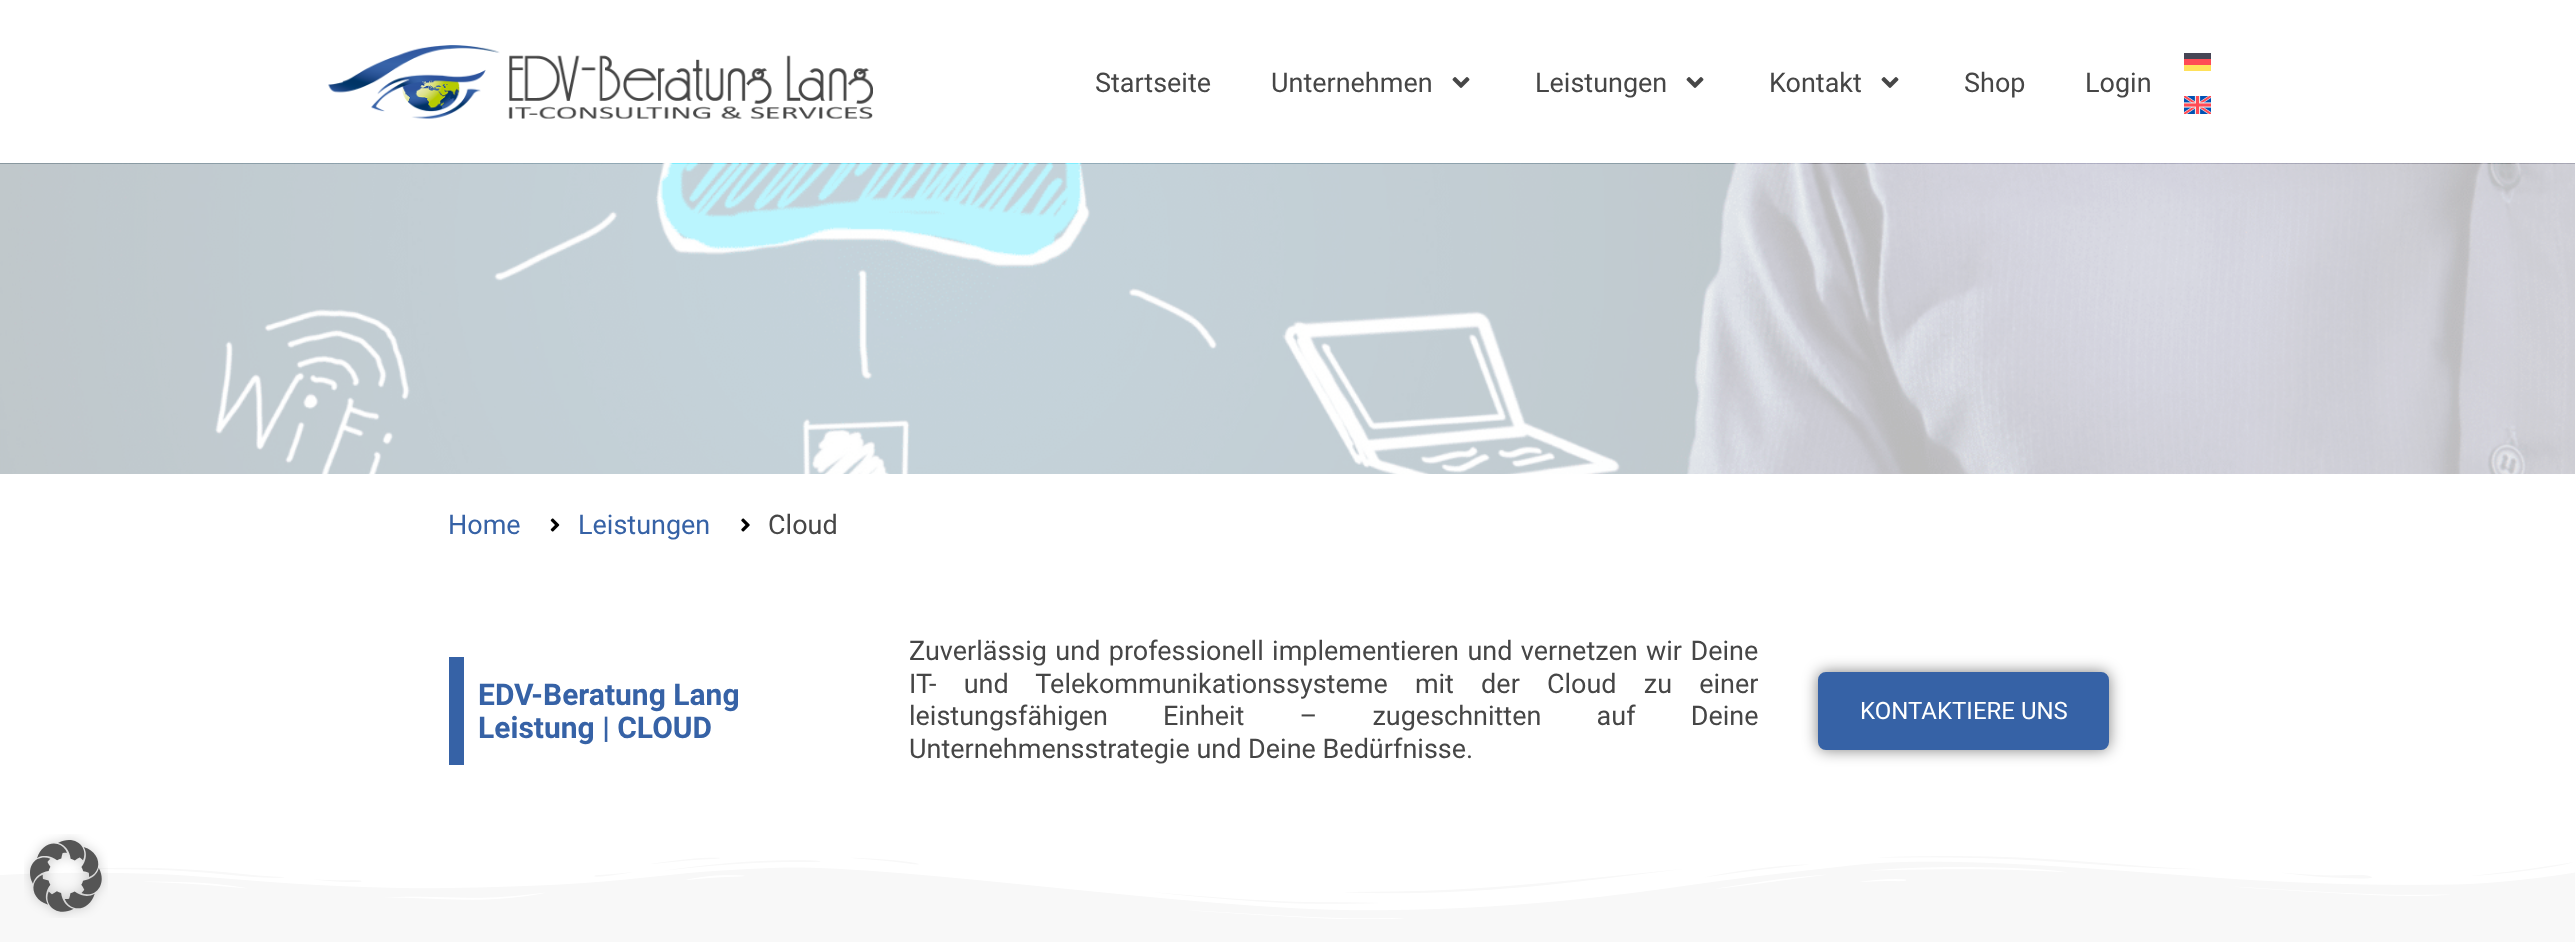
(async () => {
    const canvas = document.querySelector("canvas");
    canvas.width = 2575;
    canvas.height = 942;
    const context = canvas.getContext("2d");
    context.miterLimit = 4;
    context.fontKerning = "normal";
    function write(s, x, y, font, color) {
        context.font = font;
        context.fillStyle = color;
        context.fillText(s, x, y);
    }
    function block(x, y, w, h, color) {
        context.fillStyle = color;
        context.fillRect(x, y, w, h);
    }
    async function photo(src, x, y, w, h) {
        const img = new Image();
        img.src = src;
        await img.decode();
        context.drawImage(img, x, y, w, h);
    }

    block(0, 0, 2575, 942, "rgb(255, 255, 255)");
    await photo("media/1.png", 328, 45, 545, 74);
    write("Startseite", 1095, 92, "27px Roboto", "rgb(70, 70, 70)");
    write("Unternehmen", 1271, 92, "27px Roboto", "rgb(70, 70, 70)");
    await photo("media/2.png", 1452, 77, 18, 11);
    write("Leistungen", 1535, 92, "27px Roboto", "rgb(70, 70, 70)");
    await photo("media/2.png", 1686, 77, 18, 11);
    write("Kontakt", 1769, 92, "27px Roboto", "rgb(70, 70, 70)");
    await photo("media/2.png", 1881, 77, 18, 11);
    write("Shop", 1964, 92, "27px Roboto", "rgb(70, 70, 70)");
    write("Login", 2085, 92, "27px Roboto", "rgb(70, 70, 70)");
    block(2184, 53, 27, 6, "rgb(70, 70, 85)");
    block(2184, 59, 27, 6, "rgb(255, 75, 85)");
    block(2184, 65, 27, 6, "rgb(255, 225, 90)");
    await photo("media/3.png", 2184, 96, 27, 18);
    await photo("media/4.png", 0, 163, 2575, 311);
    write("Home", 448, 534, "27px Roboto", "rgb(54, 98, 166)");
    await photo("media/5.png", 550, 518, 10, 14);
    write("Leistungen", 578, 534, "27px Roboto", "rgb(54, 98, 166)");
    await photo("media/6.png", 741, 518, 9, 14);
    write("Cloud", 768, 534, "27px Roboto", "rgb(70, 70, 70)");
    block(449, 657, 15, 108, "rgb(54, 98, 166)");
    write("EDV-Beratung Lang", 478, 705, "bold 30px Roboto", "rgb(54, 98, 166)");
    write("Leistung | CLOUD", 478, 738, "bold 30px Roboto", "rgb(54, 98, 166)");
    context.wordSpacing = "1.75px";
    write("Zuverlässig und professionell implementieren und vernetzen wir Deine", 909, 660, "27px Roboto", "rgb(70, 70, 70)");
    context.wordSpacing = "20.5px";
    write("IT- und Telekommunikationssysteme mit der Cloud zu einer", 909, 693, "27px Roboto", "rgb(70, 70, 70)");
    context.wordSpacing = "48.5px";
    write("leistungsfähigen Einheit – zugeschnitten auf Deine", 909, 725, "27px Roboto", "rgb(70, 70, 70)");
    context.wordSpacing = "0px";
    write("Unternehmensstrategie und Deine Bedürfnisse.", 909, 758, "27px Roboto", "rgb(70, 70, 70)");
    context.fillStyle = "rgba(0, 0, 0, 0.5)";
    context.filter = "blur(7.5px)";
    context.beginPath();
    context.roundRect(1818, 672, 291, 78, 8);
    context.fill();
    context.filter = "none";
    context.fillStyle = "rgb(54, 98, 166)";
    context.beginPath();
    context.roundRect(1819.5, 673.5, 288, 75, 6.5);
    context.fill();
    context.strokeStyle = "rgb(54, 98, 166)";
    context.lineWidth = 3;
    context.stroke();
    write("KONTAKTIERE UNS", 1860, 719, "24px Roboto", "rgb(255, 255, 255)");
    block(0, 856, 2575, 86, "rgb(248, 248, 248)");
    await photo("media/7.png", 0, 848, 2575, 71);
    await photo("media/8.png", 24, 834, 84, 84);
})();
